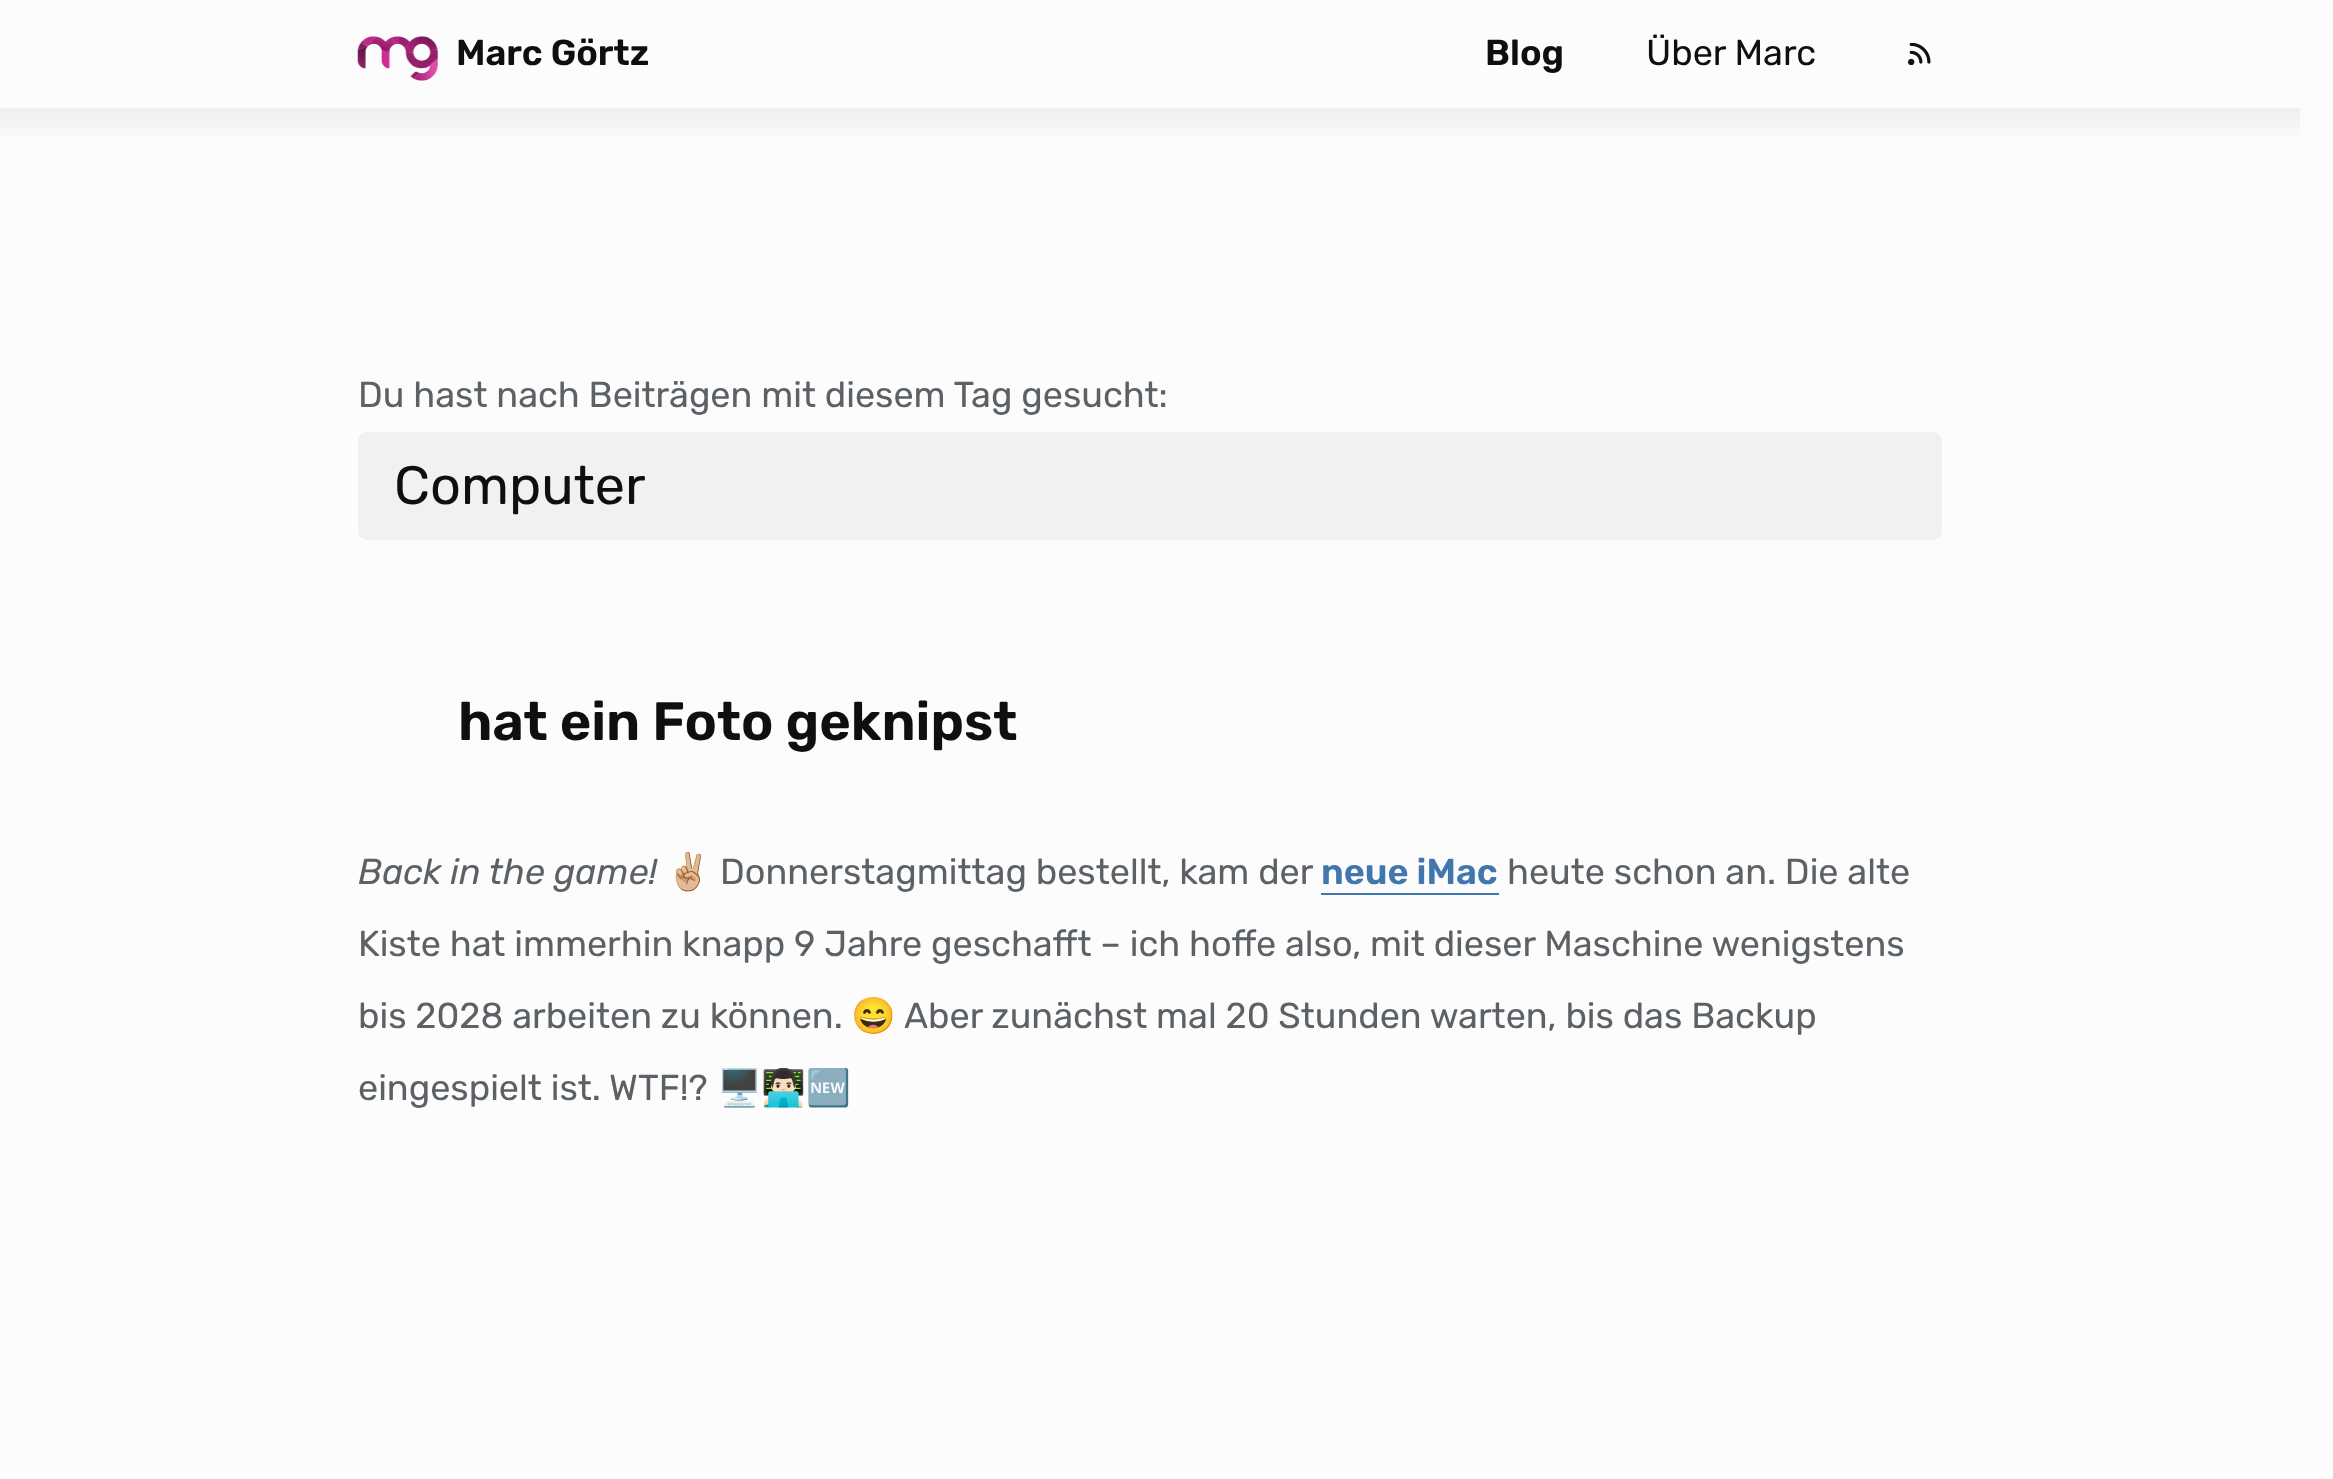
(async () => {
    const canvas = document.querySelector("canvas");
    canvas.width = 2333;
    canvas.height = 1479;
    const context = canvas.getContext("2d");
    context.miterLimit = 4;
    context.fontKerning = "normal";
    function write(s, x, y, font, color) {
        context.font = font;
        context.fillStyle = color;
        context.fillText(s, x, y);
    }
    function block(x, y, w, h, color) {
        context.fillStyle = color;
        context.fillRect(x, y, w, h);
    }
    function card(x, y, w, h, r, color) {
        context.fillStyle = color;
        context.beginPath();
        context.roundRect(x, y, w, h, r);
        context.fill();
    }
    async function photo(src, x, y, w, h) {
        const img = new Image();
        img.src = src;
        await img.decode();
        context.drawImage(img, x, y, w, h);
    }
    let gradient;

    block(0, 0, 2333, 1479, "rgb(252, 252, 252)");
    await photo("media/1.png", 357, 36, 81, 45);
    write("Marc Görtz", 456, 65, "600 36px Rubik", "rgb(15, 15, 15)");
    write("Blog", 1485, 65, "600 36px Rubik", "rgb(15, 15, 15)");
    write("Über Marc", 1646, 65, "36px Rubik", "rgb(15, 15, 15)");
    await photo("media/2.png", 1908, 43, 23, 22);
    gradient = context.createLinearGradient(1150, 108, 1150, 144);
    gradient.addColorStop(0, "rgb(239, 239, 239)");
    gradient.addColorStop(1, "rgb(252, 252, 252)");
    context.fillStyle = gradient;
    context.fillRect(0, 108, 2300, 29);
    write("Du hast nach Beiträgen mit diesem Tag gesucht:", 358, 407, "36px Rubik", "rgb(92, 97, 102)");
    card(358, 432, 1584, 108, 9, "rgb(240, 241, 242)");
    write("Computer", 394, 504, "54px Rubik", "rgb(15, 15, 15)");
    write("hat ein Foto geknipst", 458, 740, "600 54px Rubik", "rgb(15, 15, 15)");
    write("Back in the game!", 358, 884, "italic 36px Rubik", "rgb(92, 97, 102)");
    write("✌🏼", 666, 884, "36px Noto Color Emoji", "rgb(92, 97, 102)");
    write("Donnerstagmittag bestellt, kam der", 720, 884, "36px Rubik", "rgb(92, 97, 102)");
    write("neue iMac", 1321, 884, "600 36px Rubik", "rgb(65, 119, 173)");
    block(1321, 893, 178, 2, "rgb(65, 119, 173)");
    write("heute schon an. Die alte", 1507, 884, "36px Rubik", "rgb(92, 97, 102)");
    write("Kiste hat immerhin knapp 9 Jahre geschafft – ich hoffe also, mit dieser Maschine wenigstens", 358, 956, "36px Rubik", "rgb(92, 97, 102)");
    write("bis 2028 arbeiten zu können.", 358, 1028, "36px Rubik", "rgb(92, 97, 102)");
    write("😄", 851, 1028, "36px Noto Color Emoji", "rgb(92, 97, 102)");
    write("Aber zunächst mal 20 Stunden warten, bis das Backup", 904, 1028, "36px Rubik", "rgb(92, 97, 102)");
    write("eingespielt ist. WTF!?", 358, 1100, "36px Rubik", "rgb(92, 97, 102)");
    write("🖥👨🏻‍💻🆕", 717, 1100, "36px Noto Color Emoji", "rgb(92, 97, 102)");
})();
